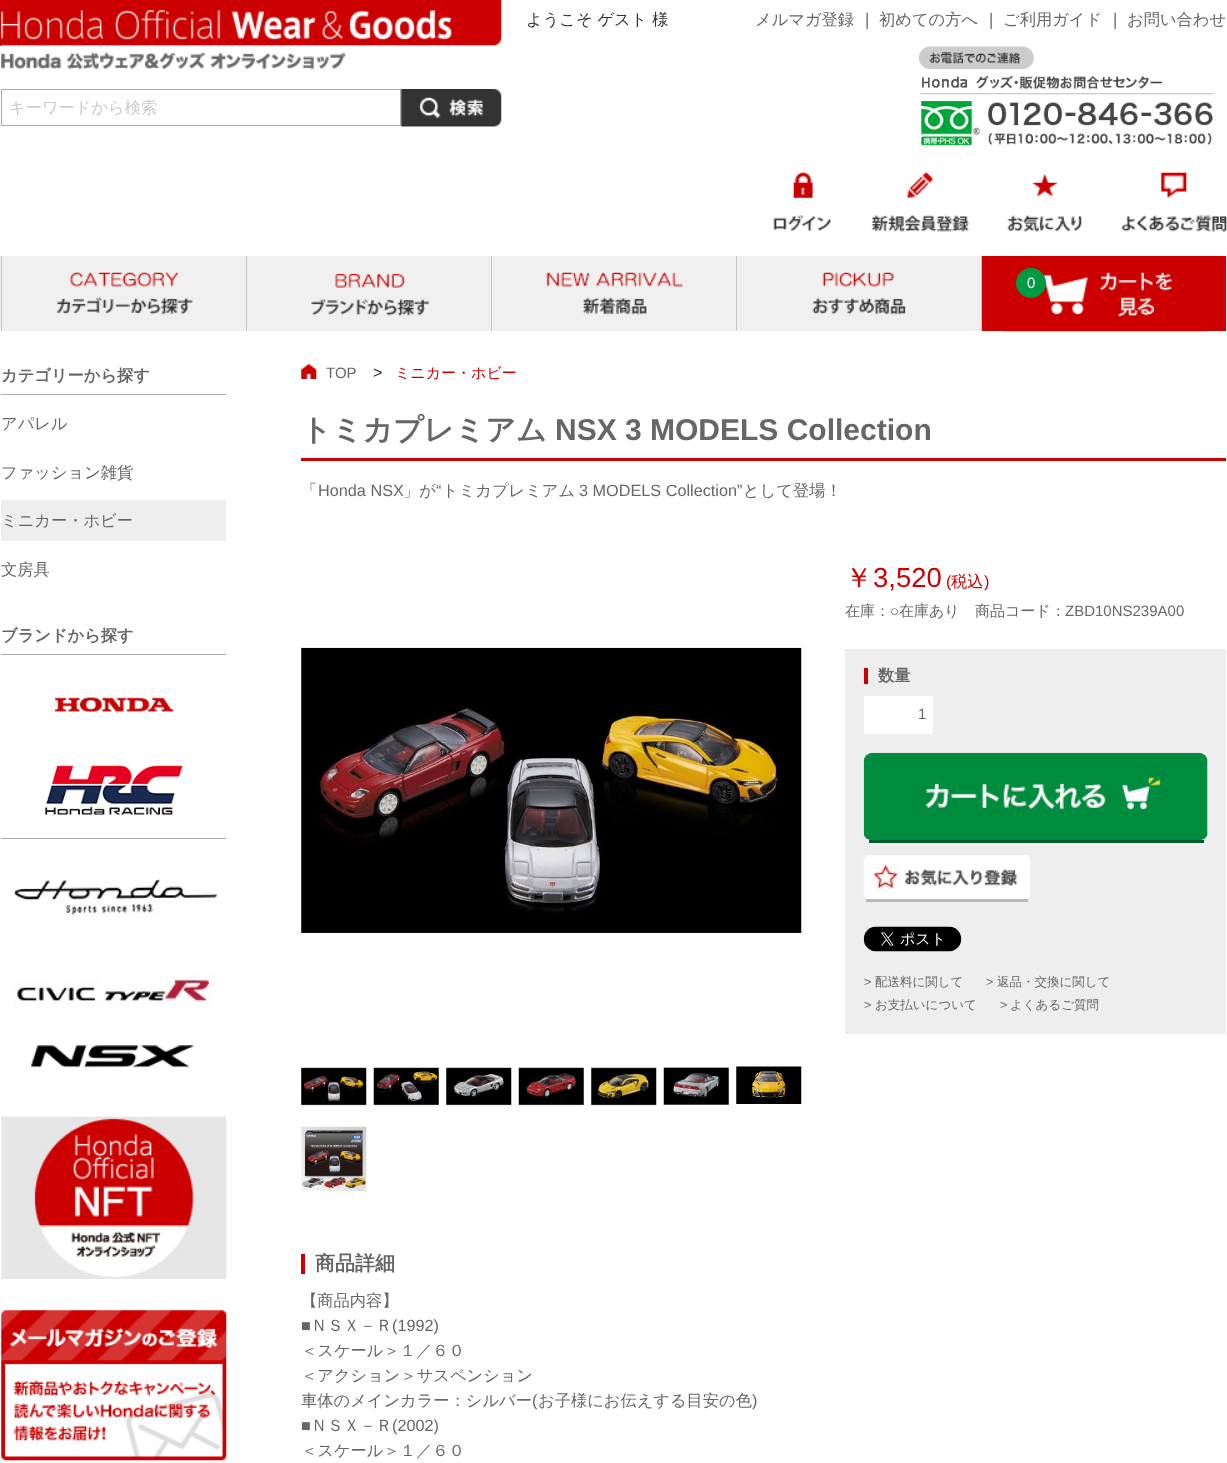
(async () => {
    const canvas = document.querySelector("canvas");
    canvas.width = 1227;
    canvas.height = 1463;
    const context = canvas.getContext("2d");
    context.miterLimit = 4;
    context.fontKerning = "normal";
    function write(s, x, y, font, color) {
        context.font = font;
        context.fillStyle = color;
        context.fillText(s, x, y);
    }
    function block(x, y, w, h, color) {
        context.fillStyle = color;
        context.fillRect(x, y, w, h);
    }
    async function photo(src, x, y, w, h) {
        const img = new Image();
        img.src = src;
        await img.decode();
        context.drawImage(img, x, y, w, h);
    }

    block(0, 0, 1227, 1463, "rgb(255, 255, 255)");
    block(0, 0, 2, 46, "rgb(204, 0, 0)");
    await photo("media/1.png", 1, 0, 501, 69);
    write("ようこそ ゲスト 様", 526, 25, "500 16.25px WenQuanYi Zen Hei", "rgb(51, 51, 51)");
    write("メルマガ登録", 755, 25, "500 16.25px WenQuanYi Zen Hei", "rgb(102, 102, 102)");
    write("｜", 859, 25, "500 16.25px WenQuanYi Zen Hei", "rgb(51, 51, 51)");
    write("初めての方へ", 879, 25, "500 16.25px WenQuanYi Zen Hei", "rgb(102, 102, 102)");
    write("｜", 983, 25, "500 16.25px WenQuanYi Zen Hei", "rgb(51, 51, 51)");
    write("ご利用ガイド", 1003, 25, "500 16.25px WenQuanYi Zen Hei", "rgb(102, 102, 102)");
    write("｜", 1107, 25, "500 16.25px WenQuanYi Zen Hei", "rgb(51, 51, 51)");
    write("お問い合わせ", 1127, 25, "500 16.25px WenQuanYi Zen Hei", "rgb(102, 102, 102)");
    context.strokeStyle = "rgb(170, 170, 170)";
    context.strokeRect(1.5, 89.5, 399, 36);
    write("キーワードから検索", 9, 113, "500 16.25px WenQuanYi Zen Hei", "rgb(202, 202, 202)");
    await photo("media/2.png", 401, 89, 101, 38);
    await photo("media/3.png", 918, 46, 296, 100);
    await photo("media/4.png", 773, 172, 59, 60);
    await photo("media/5.png", 871, 172, 98, 60);
    await photo("media/6.png", 1007, 173, 75, 59);
    await photo("media/7.png", 1121, 172, 106, 60);
    block(0, 256, 1227, 75, "rgb(240, 240, 240)");
    await photo("media/8.png", 24, 272, 202, 60);
    block(1, 256, 1, 75, "rgb(198, 198, 198)");
    await photo("media/9.png", 269, 273, 202, 59);
    block(246, 256, 1, 75, "rgb(198, 198, 198)");
    await photo("media/10.png", 514, 272, 202, 60);
    block(491, 256, 1, 75, "rgb(198, 198, 198)");
    await photo("media/11.png", 758, 272, 203, 60);
    block(736, 256, 1, 75, "rgb(198, 198, 198)");
    block(982, 256, 244, 75, "rgb(204, 0, 0)");
    block(981, 256, 1, 75, "rgb(198, 198, 198)");
    await photo("media/12.png", 1002, 272, 206, 60);
    context.fillStyle = "rgb(0, 153, 68)";
    context.beginPath();
    context.arc(1031, 283, 15, 0, Math.PI * 2);
    context.fill();
    write("0", 1027, 288, "15px Liberation Sans", "rgb(255, 255, 255)");
    block(1, 394, 225, 1, "rgb(170, 170, 170)");
    write("カテゴリーから探す", 1, 381, "bold 16.25px WenQuanYi Zen Hei", "rgb(102, 102, 102)");
    write("アパレル", 1, 429, "500 16.25px WenQuanYi Zen Hei", "rgb(102, 102, 102)");
    write("ファッション雑貨", 1, 478, "500 16.25px WenQuanYi Zen Hei", "rgb(102, 102, 102)");
    block(1, 500, 225, 41, "rgb(238, 238, 238)");
    write("ミニカー・ホビー", 1, 526, "500 16.25px WenQuanYi Zen Hei", "rgb(102, 102, 102)");
    write("文房具", 1, 575, "500 16.25px WenQuanYi Zen Hei", "rgb(102, 102, 102)");
    block(1, 838, 225, 1, "rgb(170, 170, 170)");
    block(1, 654, 225, 1, "rgb(170, 170, 170)");
    write("ブランドから探す", 1, 641, "bold 16.25px WenQuanYi Zen Hei", "rgb(102, 102, 102)");
    await photo("media/13.png", 55, 697, 119, 15);
    await photo("media/14.png", 45, 765, 138, 50);
    await photo("media/15.png", 13, 879, 205, 37);
    await photo("media/16.png", 14, 973, 202, 36);
    await photo("media/17.png", 30, 1045, 165, 23);
    await photo("media/18.png", 1, 1116, 226, 163);
    await photo("media/19.png", 1, 1310, 226, 151);
    await photo("media/20.png", 301, 364, 16, 15);
    write("TOP", 326, 378, "15px Liberation Sans", "rgb(102, 102, 102)");
    write(">", 373, 378, "16.25px Liberation Sans", "rgb(51, 51, 51)");
    write("ミニカー・ホビー", 395, 378, "500 15px WenQuanYi Zen Hei", "rgb(204, 0, 1)");
    block(301, 458, 925, 3, "rgb(204, 0, 1)");
    write("トミカプレミアム", 301, 440, "bold 30px WenQuanYi Zen Hei", "rgb(102, 102, 102)");
    write("NSX 3 MODELS Collection", 555, 440, "bold 30px Liberation Sans", "rgb(102, 102, 102)");
    write("「", 301, 496, "500 16.25px WenQuanYi Zen Hei", "rgb(102, 102, 102)");
    write("Honda NSX", 318, 496, "16.25px Liberation Sans", "rgb(102, 102, 102)");
    write("」が", 403, 496, "500 16.25px WenQuanYi Zen Hei", "rgb(102, 102, 102)");
    write("“", 436, 496, "16.25px Liberation Sans", "rgb(102, 102, 102)");
    write("トミカプレミアム", 442, 496, "500 16.25px WenQuanYi Zen Hei", "rgb(102, 102, 102)");
    write("3 MODELS Collection”", 579, 496, "16.25px Liberation Sans", "rgb(102, 102, 102)");
    write("として登場！", 743, 496, "500 16.25px WenQuanYi Zen Hei", "rgb(102, 102, 102)");
    await photo("media/21.png", 301, 647, 501, 286);
    await photo("media/22.png", 301, 1067, 66, 39);
    await photo("media/23.png", 373, 1067, 66, 39);
    await photo("media/24.png", 446, 1067, 66, 39);
    await photo("media/25.png", 518, 1067, 66, 39);
    await photo("media/26.png", 591, 1067, 66, 39);
    await photo("media/27.png", 663, 1067, 66, 38);
    await photo("media/28.png", 736, 1066, 66, 38);
    await photo("media/29.png", 301, 1126, 66, 66);
    write("￥", 845, 587, "500 27.5px WenQuanYi Zen Hei", "rgb(204, 0, 1)");
    write("3,520", 873, 587, "27.5px Liberation Sans", "rgb(204, 0, 1)");
    write("(", 946, 587, "16.25px Liberation Sans", "rgb(204, 0, 1)");
    write("税込", 951, 587, "500 16.25px WenQuanYi Zen Hei", "rgb(204, 0, 1)");
    write(")", 984, 587, "16.25px Liberation Sans", "rgb(204, 0, 1)");
    write("在庫：", 845, 616, "500 15px WenQuanYi Zen Hei", "rgb(102, 102, 102)");
    write("○", 890, 616, "15px Liberation Sans", "rgb(102, 102, 102)");
    write("在庫あり", 899, 616, "500 15px WenQuanYi Zen Hei", "rgb(102, 102, 102)");
    write("商品コード：", 975, 616, "500 15px WenQuanYi Zen Hei", "rgb(102, 102, 102)");
    write("ZBD10NS239A00", 1065, 616, "15px Liberation Sans", "rgb(102, 102, 102)");
    block(845, 649, 381, 385, "rgb(238, 238, 238)");
    block(864, 668, 4, 16, "rgb(204, 0, 0)");
    write("数量", 878, 681, "bold 16.25px WenQuanYi Zen Hei", "rgb(102, 102, 102)");
    block(864, 696, 69, 38, "rgb(255, 255, 255)");
    write("1", 918, 719, "15px Liberation Sans", "rgb(102, 102, 102)");
    block(869, 840, 335, 3, "rgb(1, 93, 42)");
    await photo("media/30.png", 863, 752, 345, 88);
    block(866, 899, 162, 3, "rgb(186, 185, 185)");
    await photo("media/31.png", 863, 855, 167, 44);
    await photo("media/32.png", 863, 926, 99, 26);
    write(">", 864, 986, "12.5px Liberation Sans", "rgb(102, 102, 102)");
    write("配送料に関して", 875, 986, "500 12.5px WenQuanYi Zen Hei", "rgb(102, 102, 102)");
    write(">", 986, 986, "12.5px Liberation Sans", "rgb(102, 102, 102)");
    write("返品・交換に関して", 997, 986, "500 12.5px WenQuanYi Zen Hei", "rgb(102, 102, 102)");
    write(">", 864, 1009, "12.5px Liberation Sans", "rgb(102, 102, 102)");
    write("お支払いについて", 875, 1009, "500 12.5px WenQuanYi Zen Hei", "rgb(102, 102, 102)");
    write(">", 1000, 1009, "12.5px Liberation Sans", "rgb(102, 102, 102)");
    write("よくあるご質問", 1010, 1009, "500 12.5px WenQuanYi Zen Hei", "rgb(102, 102, 102)");
    block(301, 1254, 4, 20, "rgb(204, 0, 0)");
    write("商品詳細", 315, 1270, "bold 20px WenQuanYi Zen Hei", "rgb(102, 102, 102)");
    write("【商品内容】", 301, 1306, "500 16.25px WenQuanYi Zen Hei", "rgb(102, 102, 102)");
    write("■", 301, 1331, "16.25px Liberation Sans", "rgb(102, 102, 102)");
    write("ＮＳＸ－Ｒ", 311, 1331, "500 16.25px WenQuanYi Zen Hei", "rgb(102, 102, 102)");
    write("(1992)", 392, 1331, "16.25px Liberation Sans", "rgb(102, 102, 102)");
    write("＜スケール＞１／６０", 301, 1356, "500 16.25px WenQuanYi Zen Hei", "rgb(102, 102, 102)");
    write("＜アクション＞サスペンション", 301, 1381, "500 16.25px WenQuanYi Zen Hei", "rgb(102, 102, 102)");
    write("車体のメインカラー：シルバー", 301, 1406, "500 16.25px WenQuanYi Zen Hei", "rgb(102, 102, 102)");
    write("(", 532, 1406, "16.25px Liberation Sans", "rgb(102, 102, 102)");
    write("お子様にお伝えする目安の色", 538, 1406, "500 16.25px WenQuanYi Zen Hei", "rgb(102, 102, 102)");
    write(")", 752, 1406, "16.25px Liberation Sans", "rgb(102, 102, 102)");
    write("■", 301, 1431, "16.25px Liberation Sans", "rgb(102, 102, 102)");
    write("ＮＳＸ－Ｒ", 311, 1431, "500 16.25px WenQuanYi Zen Hei", "rgb(102, 102, 102)");
    write("(2002)", 392, 1431, "16.25px Liberation Sans", "rgb(102, 102, 102)");
    write("＜スケール＞１／６０", 301, 1456, "500 16.25px WenQuanYi Zen Hei", "rgb(102, 102, 102)");
})();
